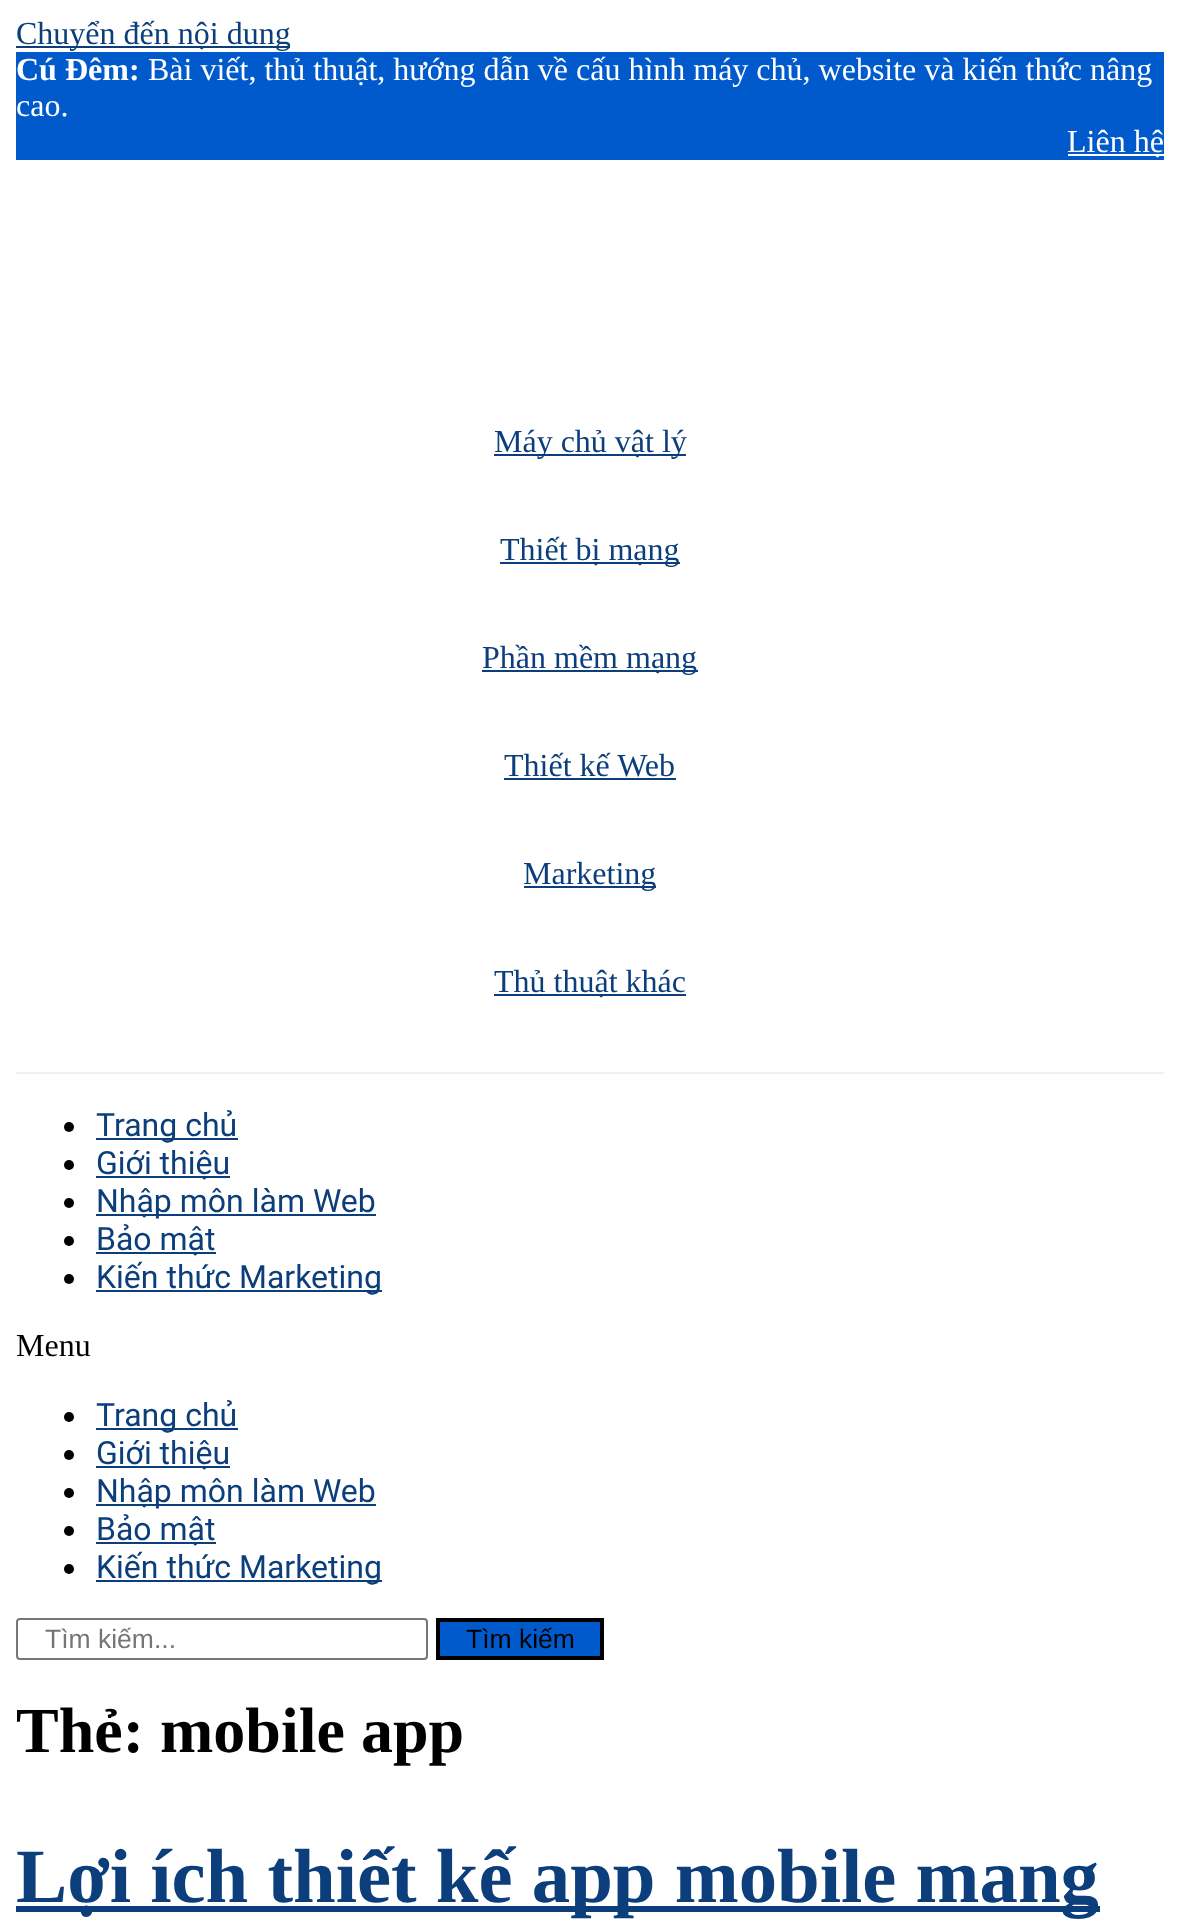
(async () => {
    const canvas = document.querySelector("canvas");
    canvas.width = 1180;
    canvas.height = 1929;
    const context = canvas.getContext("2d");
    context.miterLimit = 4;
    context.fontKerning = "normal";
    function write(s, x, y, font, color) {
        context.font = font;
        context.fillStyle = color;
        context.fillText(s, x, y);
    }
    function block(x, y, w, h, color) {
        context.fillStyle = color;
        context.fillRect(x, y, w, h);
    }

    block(0, 0, 1180, 1929, "rgb(255, 255, 255)");
    block(16, 46, 274, 2, "rgb(11, 62, 123)");
    write("Chuyển đến nội dung", 16, 44, "32px Liberation Serif", "rgb(11, 62, 123)");
    block(16, 52, 1148, 108, "rgb(0, 90, 204)");
    write("Cú Đêm:", 16, 80, "bold 32px Liberation Serif", "rgb(255, 255, 255)");
    write("Bài viết, thủ thuật, hướng dẫn về cấu hình máy chủ, website và kiến thức nâng", 148, 80, "32px Liberation Serif", "rgb(255, 255, 255)");
    write("cao.", 16, 116, "32px Liberation Serif", "rgb(255, 255, 255)");
    block(1068, 154, 96, 2, "rgb(255, 255, 255)");
    write("Liên hệ", 1067, 152, "32px Liberation Serif", "rgb(255, 255, 255)");
    block(16, 1072, 1148, 2, "rgb(240, 240, 240)");
    block(494, 454, 192, 2, "rgb(11, 62, 123)");
    write("Máy chủ vật lý", 494, 452, "32px Liberation Serif", "rgb(11, 62, 123)");
    block(500, 562, 180, 2, "rgb(11, 62, 123)");
    write("Thiết bị mạng", 500, 560, "32px Liberation Serif", "rgb(11, 62, 123)");
    block(482, 670, 216, 2, "rgb(11, 62, 123)");
    write("Phần mềm mạng", 482, 668, "32px Liberation Serif", "rgb(11, 62, 123)");
    write("Thiết kế Web", 504, 776, "32px Liberation Serif", "rgb(11, 62, 123)");
    block(504, 778, 172, 2, "rgb(11, 62, 123)");
    block(524, 886, 132, 2, "rgb(11, 62, 123)");
    write("Marketing", 523, 884, "32px Liberation Serif", "rgb(11, 62, 123)");
    block(494, 994, 192, 2, "rgb(11, 62, 123)");
    write("Thủ thuật khác", 494, 992, "32px Liberation Serif", "rgb(11, 62, 123)");
    context.fillStyle = "rgb(0, 0, 0)";
    context.beginPath();
    context.arc(69, 1127, 5, 0, Math.PI * 2);
    context.fill();
    block(96, 1138, 142, 2, "rgb(11, 62, 123)");
    write("Trang chủ", 96, 1136, "32px Roboto", "rgb(11, 62, 123)");
    context.fillStyle = "rgb(0, 0, 0)";
    context.beginPath();
    context.arc(69, 1165, 5, 0, Math.PI * 2);
    context.fill();
    block(96, 1176, 134, 2, "rgb(11, 62, 123)");
    write("Giới thiệu", 96, 1174, "32px Roboto", "rgb(11, 62, 123)");
    context.fillStyle = "rgb(0, 0, 0)";
    context.beginPath();
    context.arc(69, 1203, 5, 0, Math.PI * 2);
    context.fill();
    block(96, 1214, 280, 2, "rgb(11, 62, 123)");
    write("Nhập môn làm Web", 96, 1212, "32px Roboto", "rgb(11, 62, 123)");
    context.fillStyle = "rgb(0, 0, 0)";
    context.beginPath();
    context.arc(69, 1241, 5, 0, Math.PI * 2);
    context.fill();
    block(96, 1252, 120, 2, "rgb(11, 62, 123)");
    write("Bảo mật", 96, 1250, "32px Roboto", "rgb(11, 62, 123)");
    context.fillStyle = "rgb(0, 0, 0)";
    context.beginPath();
    context.arc(69, 1279, 5, 0, Math.PI * 2);
    context.fill();
    block(96, 1290, 286, 2, "rgb(11, 62, 123)");
    write("Kiến thức Marketing", 96, 1288, "32px Roboto", "rgb(11, 62, 123)");
    write("Menu", 16, 1356, "32px Liberation Serif", "rgb(0, 0, 0)");
    context.beginPath();
    context.arc(69, 1417, 5, 0, Math.PI * 2);
    context.fill();
    block(96, 1428, 142, 2, "rgb(11, 62, 123)");
    write("Trang chủ", 96, 1426, "32px Roboto", "rgb(11, 62, 123)");
    context.fillStyle = "rgb(0, 0, 0)";
    context.beginPath();
    context.arc(69, 1455, 5, 0, Math.PI * 2);
    context.fill();
    block(96, 1466, 134, 2, "rgb(11, 62, 123)");
    write("Giới thiệu", 96, 1464, "32px Roboto", "rgb(11, 62, 123)");
    context.fillStyle = "rgb(0, 0, 0)";
    context.beginPath();
    context.arc(69, 1493, 5, 0, Math.PI * 2);
    context.fill();
    block(96, 1504, 280, 2, "rgb(11, 62, 123)");
    write("Nhập môn làm Web", 96, 1502, "32px Roboto", "rgb(11, 62, 123)");
    context.fillStyle = "rgb(0, 0, 0)";
    context.beginPath();
    context.arc(69, 1531, 5, 0, Math.PI * 2);
    context.fill();
    block(96, 1542, 120, 2, "rgb(11, 62, 123)");
    write("Bảo mật", 96, 1540, "32px Roboto", "rgb(11, 62, 123)");
    context.fillStyle = "rgb(0, 0, 0)";
    context.beginPath();
    context.arc(69, 1569, 5, 0, Math.PI * 2);
    context.fill();
    block(96, 1580, 286, 2, "rgb(11, 62, 123)");
    write("Kiến thức Marketing", 96, 1578, "32px Roboto", "rgb(11, 62, 123)");
    context.beginPath();
    context.roundRect(17, 1619, 410, 40, 3);
    context.strokeStyle = "rgb(118, 118, 118)";
    context.lineWidth = 2;
    context.stroke();
    write("Tìm kiếm...", 45, 1648, "26.5px Liberation Sans", "rgb(117, 117, 117)");
    context.fillStyle = "rgb(0, 90, 204)";
    context.beginPath();
    context.rect(438, 1620, 164, 38);
    context.fill();
    context.strokeStyle = "rgb(0, 0, 0)";
    context.lineWidth = 4;
    context.stroke();
    write("Tìm kiếm", 466, 1648, "26.5px Liberation Sans", "rgb(0, 0, 0)");
    write("Thẻ: mobile app", 16, 1752, "bold 64px Liberation Serif", "rgb(0, 0, 0)");
    block(16, 1906, 1084, 6, "rgb(11, 62, 123)");
    write("Lợi ích thiết kế app mobile mang", 16, 1902, "bold 76.75px Liberation Serif", "rgb(11, 62, 123)");
})();
